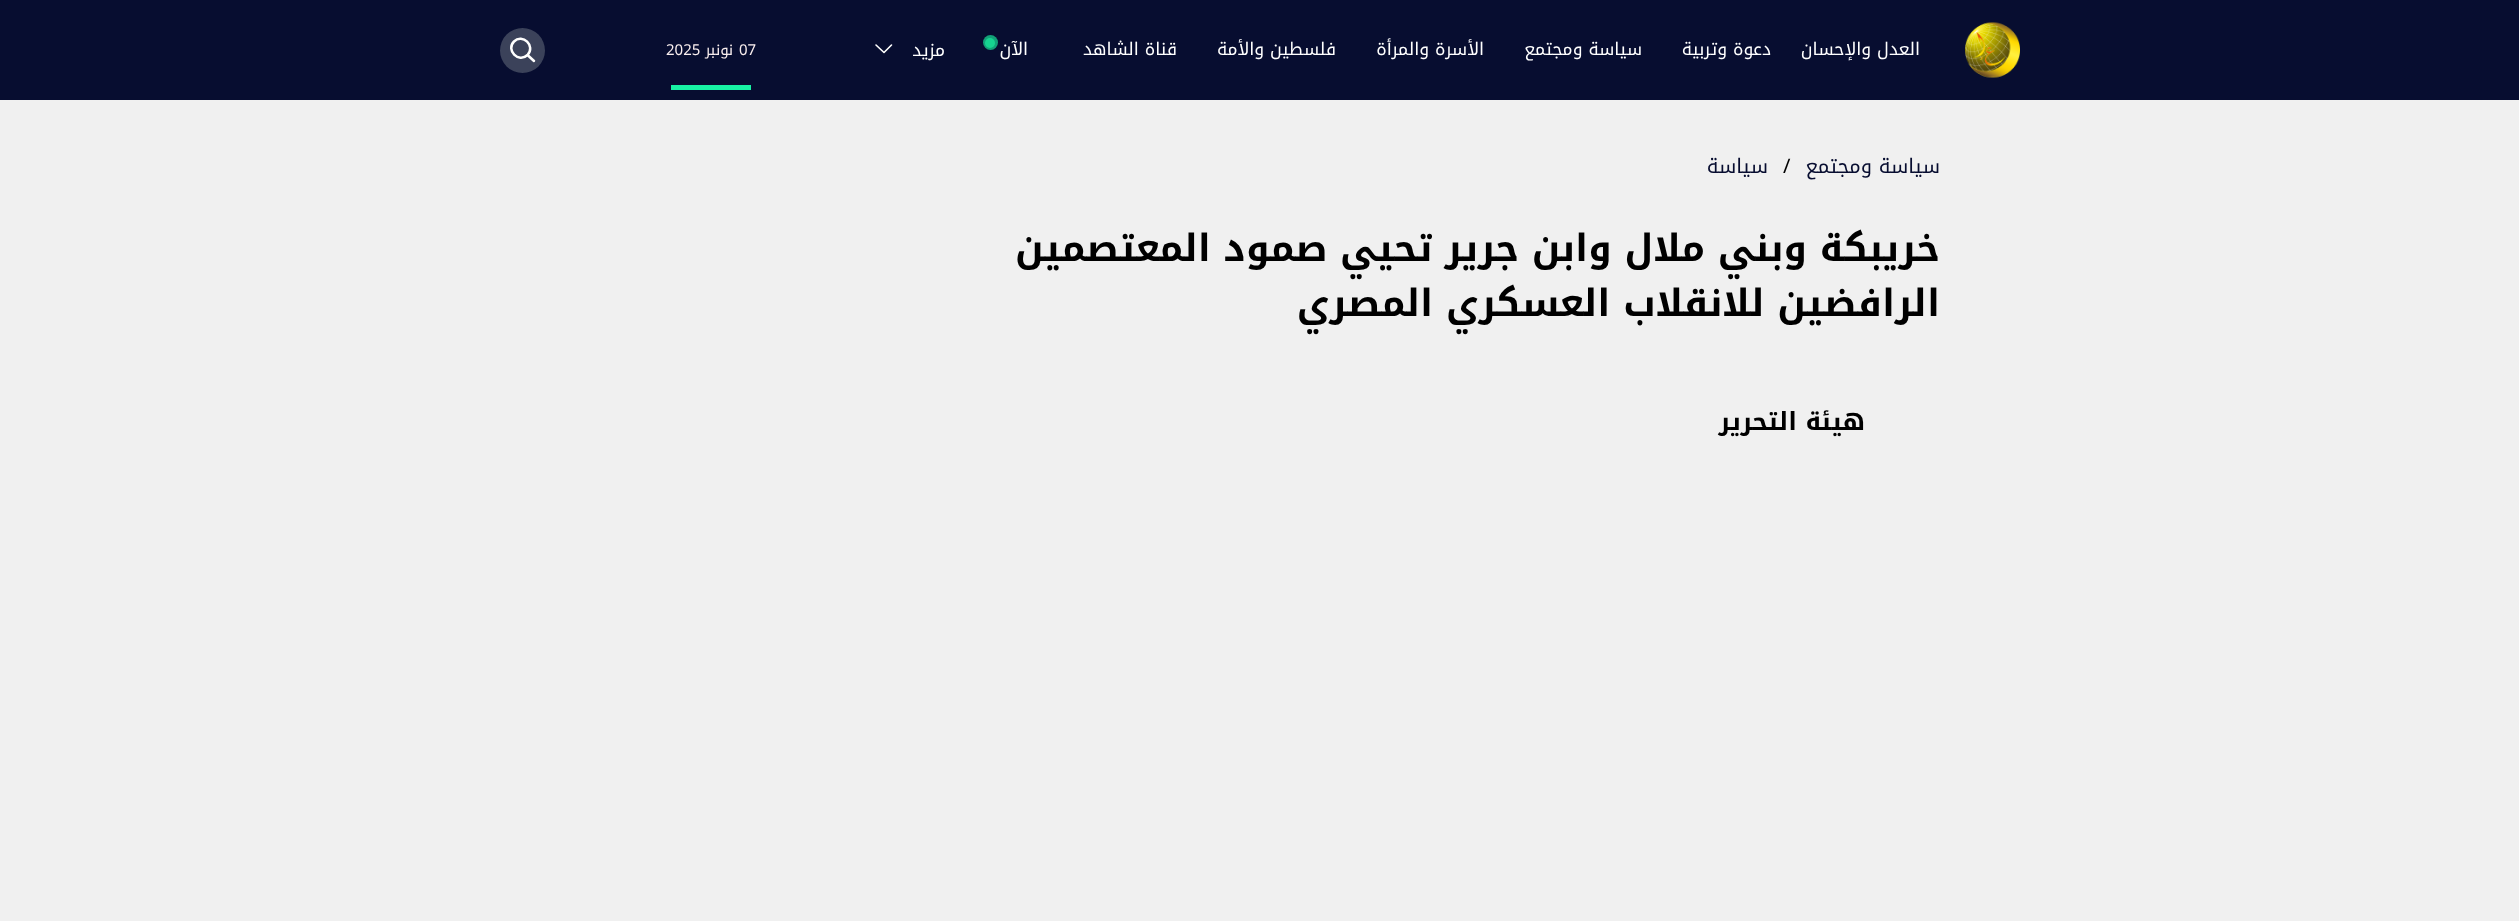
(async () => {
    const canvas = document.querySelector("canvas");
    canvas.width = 2519;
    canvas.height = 921;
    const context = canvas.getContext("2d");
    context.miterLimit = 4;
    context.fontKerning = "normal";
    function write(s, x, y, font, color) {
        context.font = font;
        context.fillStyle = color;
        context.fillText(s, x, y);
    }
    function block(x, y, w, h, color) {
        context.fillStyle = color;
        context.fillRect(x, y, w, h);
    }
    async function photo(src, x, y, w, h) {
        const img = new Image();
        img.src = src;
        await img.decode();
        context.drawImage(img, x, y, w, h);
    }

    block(0, 0, 2519, 921, "rgb(240, 240, 240)");
    block(0, 0, 2519, 100, "rgb(7, 13, 48)");
    await photo("media/1.png", 1965, 22, 55, 56);
    context.direction = "rtl";
    write("العدل والإحسان", 1920, 55, "17.5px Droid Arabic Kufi", "rgb(255, 255, 255)");
    write("دعوة وتربية", 1771, 55, "17.5px Droid Arabic Kufi", "rgb(255, 255, 255)");
    write("سياسة ومجتمع", 1642, 55, "17.5px Droid Arabic Kufi", "rgb(255, 255, 255)");
    write("الأسرة والمرأة", 1484, 55, "17.5px Droid Arabic Kufi", "rgb(255, 255, 255)");
    write("فلسطين والأمة", 1336, 55, "17.5px Droid Arabic Kufi", "rgb(255, 255, 255)");
    write("قناة الشاهد", 1177, 55, "17.5px Droid Arabic Kufi", "rgb(255, 255, 255)");
    context.fillStyle = "rgb(23, 211, 144)";
    context.beginPath();
    context.arc(990, 43, 5, 0, Math.PI * 2);
    context.fill();
    context.fillStyle = "rgba(23, 211, 144, 0.75)";
    context.beginPath();
    context.arc(990.5, 42.5, 7.5, 0, Math.PI * 2);
    context.fill();
    write("الآن", 1028, 55, "17.5px Droid Arabic Kufi", "rgb(255, 255, 255)");
    write("مزيد", 945, 56, "17.5px Droid Arabic Kufi", "rgb(255, 255, 255)");
    context.beginPath();
    context.moveTo(891.5, 45);
    context.lineTo(884, 52.5);
    context.lineTo(876, 45);
    context.strokeStyle = "rgb(255, 255, 255)";
    context.lineWidth = 1.6;
    context.lineCap = "round";
    context.lineJoin = "round";
    context.stroke();
    context.direction = "ltr";
    write("07", 739, 55, "15px Noto Sans", "rgb(249, 238, 238)");
    context.direction = "rtl";
    write("نونبر", 733, 55, "15px Droid Arabic Kufi", "rgb(249, 238, 238)");
    context.direction = "ltr";
    write("2025", 666, 55, "15px Noto Sans", "rgb(249, 238, 238)");
    block(671, 85, 80, 5, "rgb(24, 242, 164)");
    context.fillStyle = "rgb(59, 66, 90)";
    context.beginPath();
    context.arc(522.5, 50.5, 22.5, 0, Math.PI * 2);
    context.fill();
    context.beginPath();
    context.moveTo(534, 61);
    context.lineTo(527.5, 55);
    context.moveTo(527.5, 55);
    context.bezierCurveTo(536, 46, 522.5, 33, 514, 41.5);
    context.bezierCurveTo(505.5, 50, 518.5, 63.5, 527.5, 55);
    context.closePath();
    context.lineWidth = 2.5;
    context.stroke();
    context.direction = "rtl";
    write("سياسة ومجتمع", 1940, 173, "20px Droid Arabic Kufi", "rgb(7, 13, 48)");
    context.direction = "ltr";
    write("/", 1783, 173, "20px Noto Sans", "rgb(0, 0, 0)");
    context.direction = "rtl";
    write("سياسة", 1768, 173, "20px Droid Arabic Kufi", "rgb(7, 13, 48)");
    write("خريبكة وبني ملال وابن جرير تحيي صمود المعتصمين", 1940, 261, "bold 37.5px Droid Arabic Kufi", "rgb(0, 0, 0)");
    write("الرافضين للانقلاب العسكري المصري", 1940, 316, "bold 37.5px Droid Arabic Kufi", "rgb(0, 0, 0)");
    write("هيئة التحرير", 1865, 430, "bold 25px Droid Arabic Kufi", "rgb(0, 0, 0)");
})();
